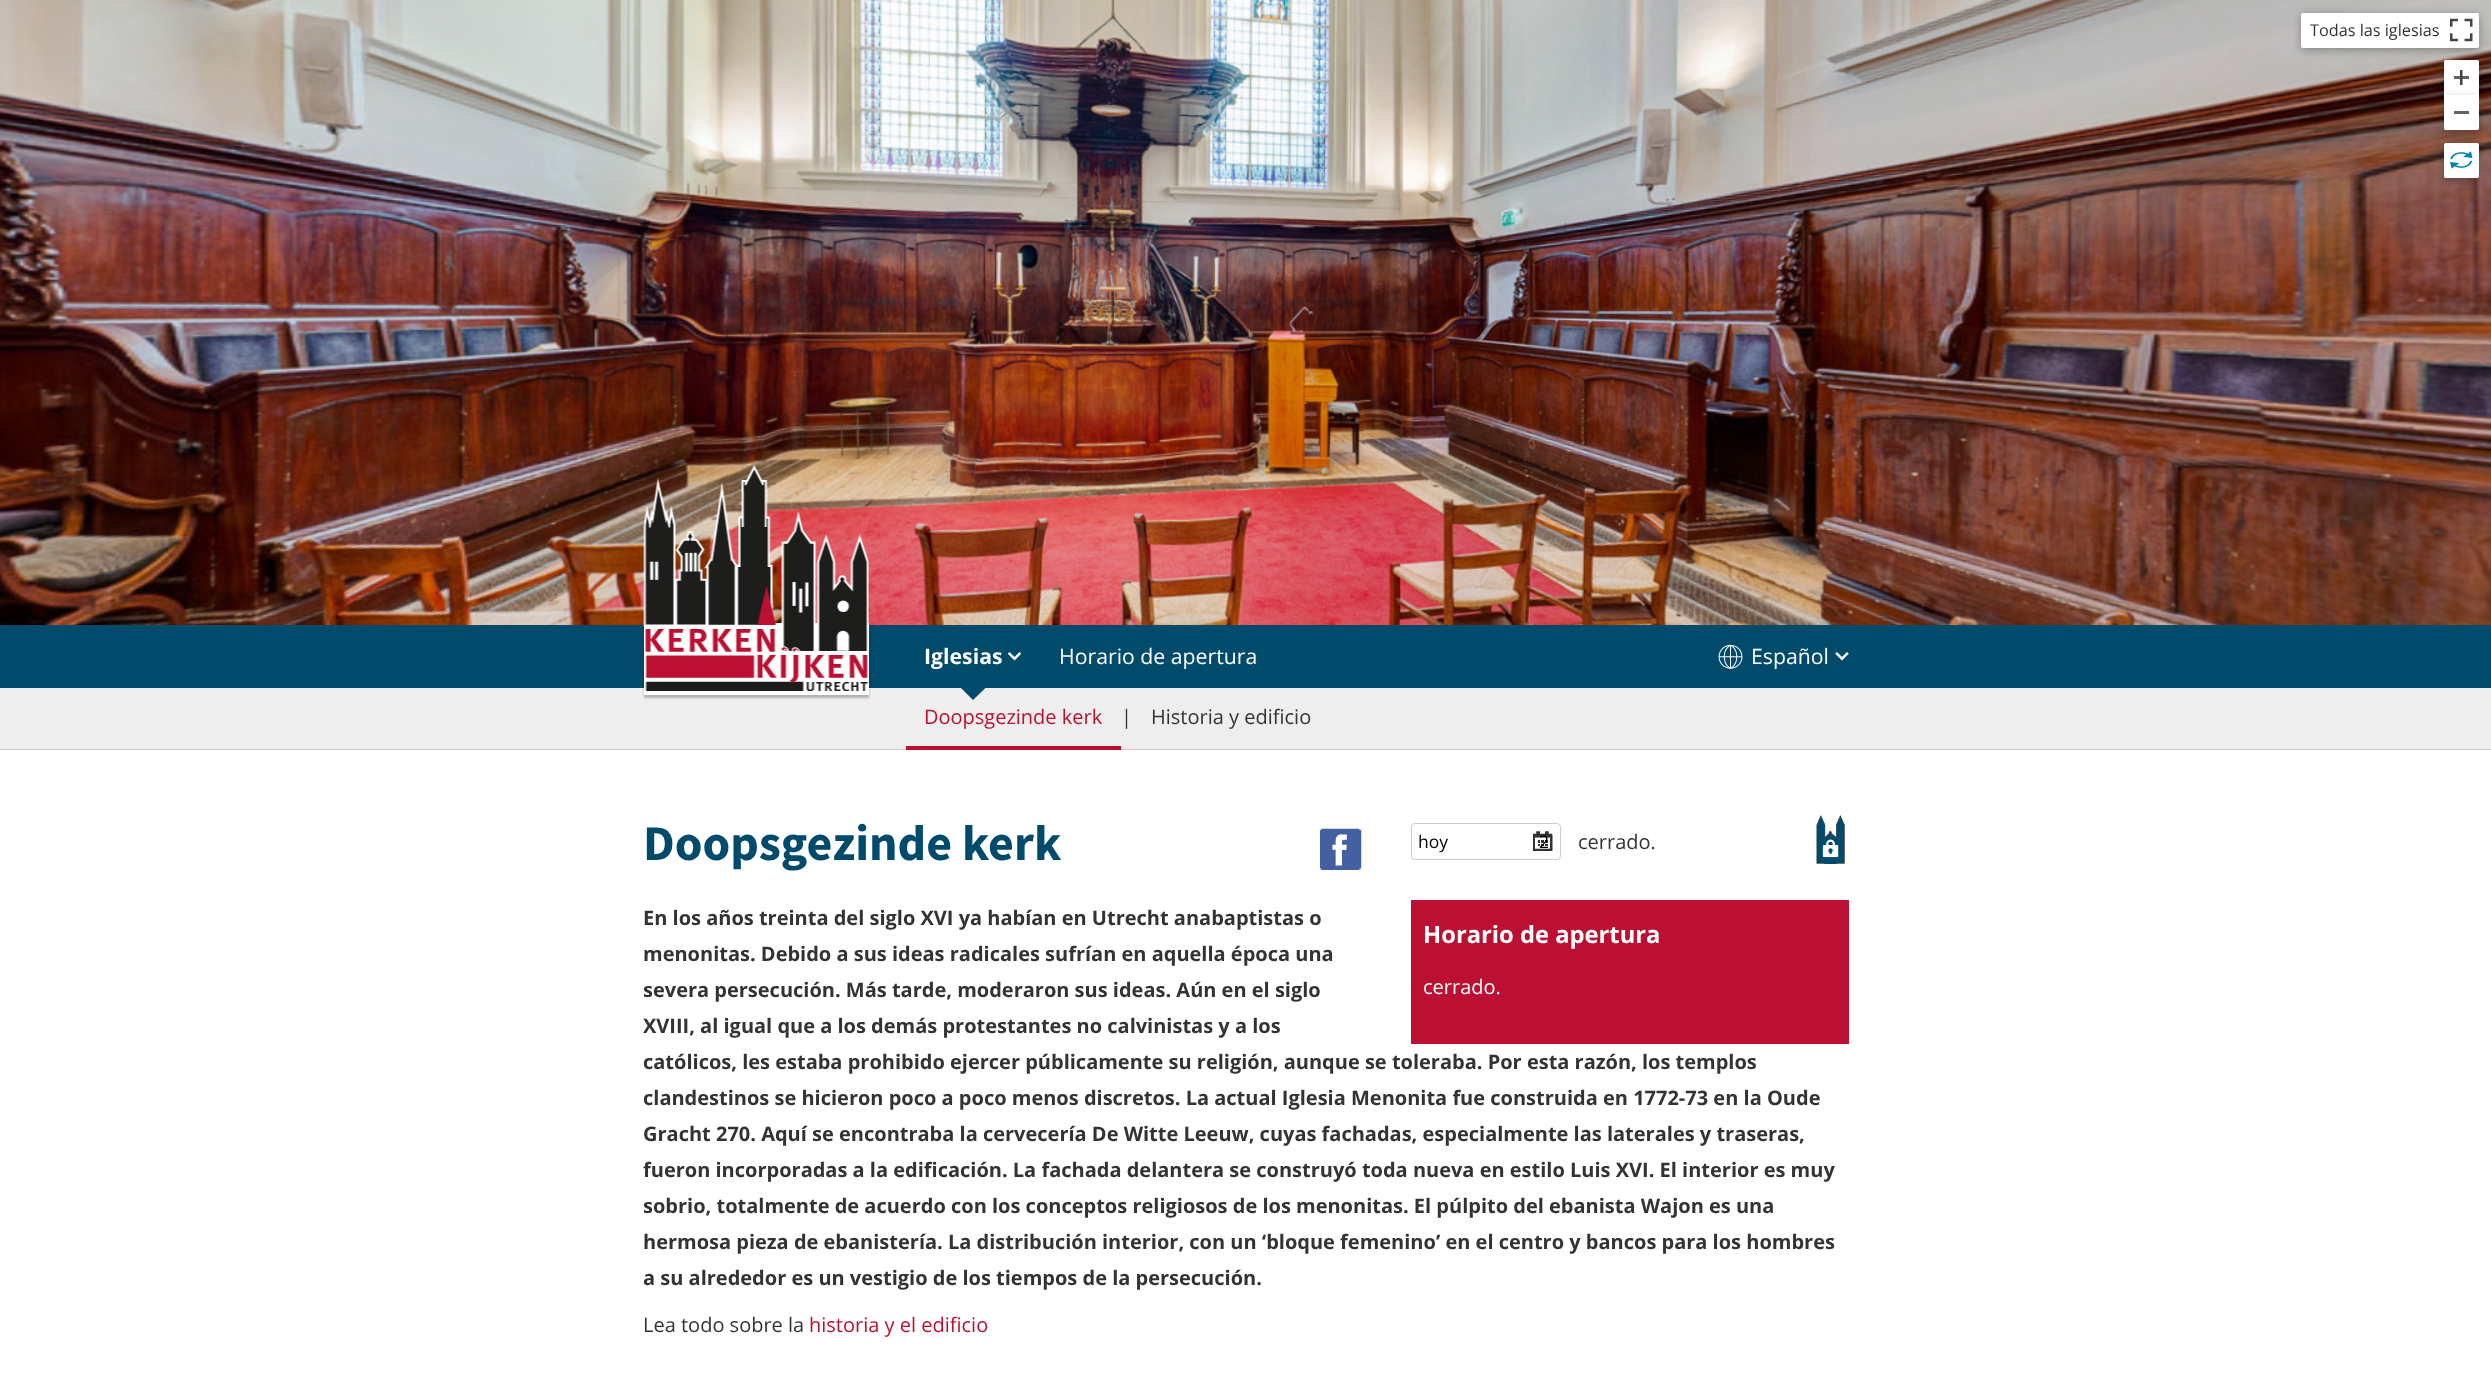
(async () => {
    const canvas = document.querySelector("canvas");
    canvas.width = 2491;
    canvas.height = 1399;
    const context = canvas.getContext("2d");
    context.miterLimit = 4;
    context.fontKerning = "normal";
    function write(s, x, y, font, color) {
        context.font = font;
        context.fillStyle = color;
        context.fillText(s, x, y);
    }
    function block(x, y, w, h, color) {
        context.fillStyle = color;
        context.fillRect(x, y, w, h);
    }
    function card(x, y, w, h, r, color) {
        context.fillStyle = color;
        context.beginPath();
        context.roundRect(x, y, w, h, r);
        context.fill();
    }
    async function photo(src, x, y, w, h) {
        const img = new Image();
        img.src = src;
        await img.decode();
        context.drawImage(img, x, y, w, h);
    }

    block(0, 0, 2491, 1399, "rgb(255, 255, 255)");
    await photo("media/1.png", 0, 0, 2491, 625);
    context.fillStyle = "rgba(0, 0, 0, 0.3)";
    context.filter = "blur(4px)";
    context.beginPath();
    context.roundRect(2301, 15, 178, 35, 2.5);
    context.fill();
    context.filter = "none";
    card(2301, 13, 178, 35, 2.5, "rgb(255, 255, 255)");
    await photo("media/2.png", 2450, 18, 23, 24);
    context.beginPath();
    context.roundRect(2302.5, 14.5, 175, 32, 1);
    context.strokeStyle = "rgb(255, 255, 255)";
    context.lineWidth = 3;
    context.stroke();
    write("Todas las iglesias", 2310, 36, "16.25px Open Sans", "rgb(51, 51, 51)");
    context.fillStyle = "rgba(0, 0, 0, 0.3)";
    context.filter = "blur(4px)";
    context.beginPath();
    context.roundRect(2444, 63, 35, 35, 2.5);
    context.fill();
    context.filter = "none";
    context.fillStyle = "rgb(255, 255, 255)";
    context.beginPath();
    context.roundRect(2444, 60, 35, 35, [2.5, 2.5, 0, 0]);
    context.fill();
    await photo("media/3.png", 2454, 70, 15, 15);
    context.beginPath();
    context.roundRect(2445.5, 61.5, 32, 32, [1, 1, 0, 0]);
    context.stroke();
    context.fillStyle = "rgba(0, 0, 0, 0.3)";
    context.filter = "blur(4px)";
    context.beginPath();
    context.roundRect(2444, 145, 35, 35, 2.5);
    context.fill();
    context.filter = "none";
    card(2444, 143, 35, 35, 2.5, "rgb(255, 255, 255)");
    await photo("media/4.png", 2450, 151, 23, 18);
    context.beginPath();
    context.roundRect(2445.5, 144.5, 32, 32, 1);
    context.stroke();
    context.fillStyle = "rgba(0, 0, 0, 0.3)";
    context.filter = "blur(4px)";
    context.beginPath();
    context.roundRect(2444, 98, 35, 35, 2.5);
    context.fill();
    context.filter = "none";
    context.fillStyle = "rgb(255, 255, 255)";
    context.beginPath();
    context.roundRect(2444, 95, 35, 35, [0, 0, 2.5, 2.5]);
    context.fill();
    block(2454, 111, 15, 3, "rgb(100, 100, 100)");
    context.beginPath();
    context.roundRect(2445.5, 96.5, 32, 32, [0, 0, 1, 1]);
    context.stroke();
    block(0, 625, 2491, 63, "rgb(0, 75, 108)");
    block(0, 688, 2491, 61, "rgb(238, 238, 238)");
    context.fillStyle = "rgba(0, 0, 0, 0.25)";
    context.filter = "blur(1px)";
    context.beginPath();
    context.rect(644, 625, 225, 73);
    context.fill();
    context.filter = "none";
    block(644, 623, 225, 72, "rgb(255, 255, 255)");
    await photo("media/5.png", 643, 465, 226, 226);
    await photo("media/6.png", 1007, 652, 14, 9);
    write("Iglesias", 924, 664, "bold 21.25px Open Sans", "rgb(255, 255, 255)");
    context.save();
    context.beginPath();
    context.rect(959, 686, 29, 14);
    context.clip();
    context.fillStyle = "rgb(0, 74, 107)";
    context.beginPath();
    context.moveTo(973, 672.5);
    context.lineTo(987, 686.5);
    context.lineTo(973, 700);
    context.lineTo(959.5, 686.5);
    context.closePath();
    context.fill();
    context.restore();
    block(0, 749, 2491, 1, "rgb(204, 204, 204)");
    block(906, 746, 215, 4, "rgb(187, 16, 49)");
    write("Doopsgezinde kerk", 924, 724, "20px Open Sans", "rgb(187, 16, 49)");
    write("|", 1121, 724, "20px Open Sans", "rgb(51, 51, 51)");
    write("Historia y edificio", 1151, 724, "20px Open Sans", "rgb(51, 51, 51)");
    write("Horario de apertura", 1059, 664, "21.25px Open Sans", "rgb(255, 255, 255)");
    await photo("media/7.png", 1718, 644, 25, 25);
    await photo("media/8.png", 1835, 652, 14, 9);
    write("Español", 1751, 664, "21.25px Open Sans", "rgb(255, 255, 255)");
    write("Doopsgezinde kerk", 643, 860, "bold 50px Source Sans Pro", "rgb(0, 75, 108)");
    await photo("media/9.png", 1320, 828, 42, 42);
    await photo("media/10.png", 1533, 831, 20, 20);
    context.beginPath();
    context.roundRect(1411.5, 823.5, 149, 36, 3.5);
    context.strokeStyle = "rgb(204, 204, 204)";
    context.lineWidth = 1;
    context.stroke();
    write("hoy                    2", 1418, 848, "17.5px Open Sans", "rgb(0, 0, 0)");
    write("cerrado.", 1578, 849, "20px Open Sans", "rgb(51, 51, 51)");
    await photo("media/11.png", 1816, 815, 29, 49);
    write("En los años treinta del siglo XVI ya habían en Utrecht anabaptistas o", 643, 925, "bold 20px Open Sans", "rgb(51, 51, 51)");
    write("menonitas. Debido a sus ideas radicales sufrían en aquella época una", 643, 961, "bold 20px Open Sans", "rgb(51, 51, 51)");
    write("severa persecución. Más tarde, moderaron sus ideas. Aún en el siglo", 643, 997, "bold 20px Open Sans", "rgb(51, 51, 51)");
    write("XVIII, al igual que a los demás protestantes no calvinistas y a los", 643, 1033, "bold 20px Open Sans", "rgb(51, 51, 51)");
    write("católicos, les estaba prohibido ejercer públicamente su religión, aunque se toleraba. Por esta razón, los templos", 643, 1069, "bold 20px Open Sans", "rgb(51, 51, 51)");
    write("clandestinos se hicieron poco a poco menos discretos. La actual Iglesia Menonita fue construida en 1772-73 en la Oude", 643, 1105, "bold 20px Open Sans", "rgb(51, 51, 51)");
    write("Gracht 270. Aquí se encontraba la cervecería De Witte Leeuw, cuyas fachadas, especialmente las laterales y traseras,", 643, 1141, "bold 20px Open Sans", "rgb(51, 51, 51)");
    write("fueron incorporadas a la edificación. La fachada delantera se construyó toda nueva en estilo Luis XVI. El interior es muy", 643, 1177, "bold 20px Open Sans", "rgb(51, 51, 51)");
    write("sobrio, totalmente de acuerdo con los conceptos religiosos de los menonitas. El púlpito del ebanista Wajon es una", 643, 1213, "bold 20px Open Sans", "rgb(51, 51, 51)");
    write("hermosa pieza de ebanistería. La distribución interior, con un ‘bloque femenino’ en el centro y bancos para los hombres", 643, 1249, "bold 20px Open Sans", "rgb(51, 51, 51)");
    write("a su alrededor es un vestigio de los tiempos de la persecución.", 643, 1285, "bold 20px Open Sans", "rgb(51, 51, 51)");
    block(1411, 900, 438, 144, "rgb(187, 16, 49)");
    write("Horario de apertura", 1423, 943, "bold 23.75px Open Sans", "rgb(255, 255, 255)");
    write("cerrado.", 1423, 994, "20px Open Sans", "rgb(255, 255, 255)");
    write("Lea todo sobre la", 643, 1332, "20px Open Sans", "rgb(51, 51, 51)");
    write("historia y el edificio", 809, 1332, "20px Open Sans", "rgb(187, 16, 49)");
})();
